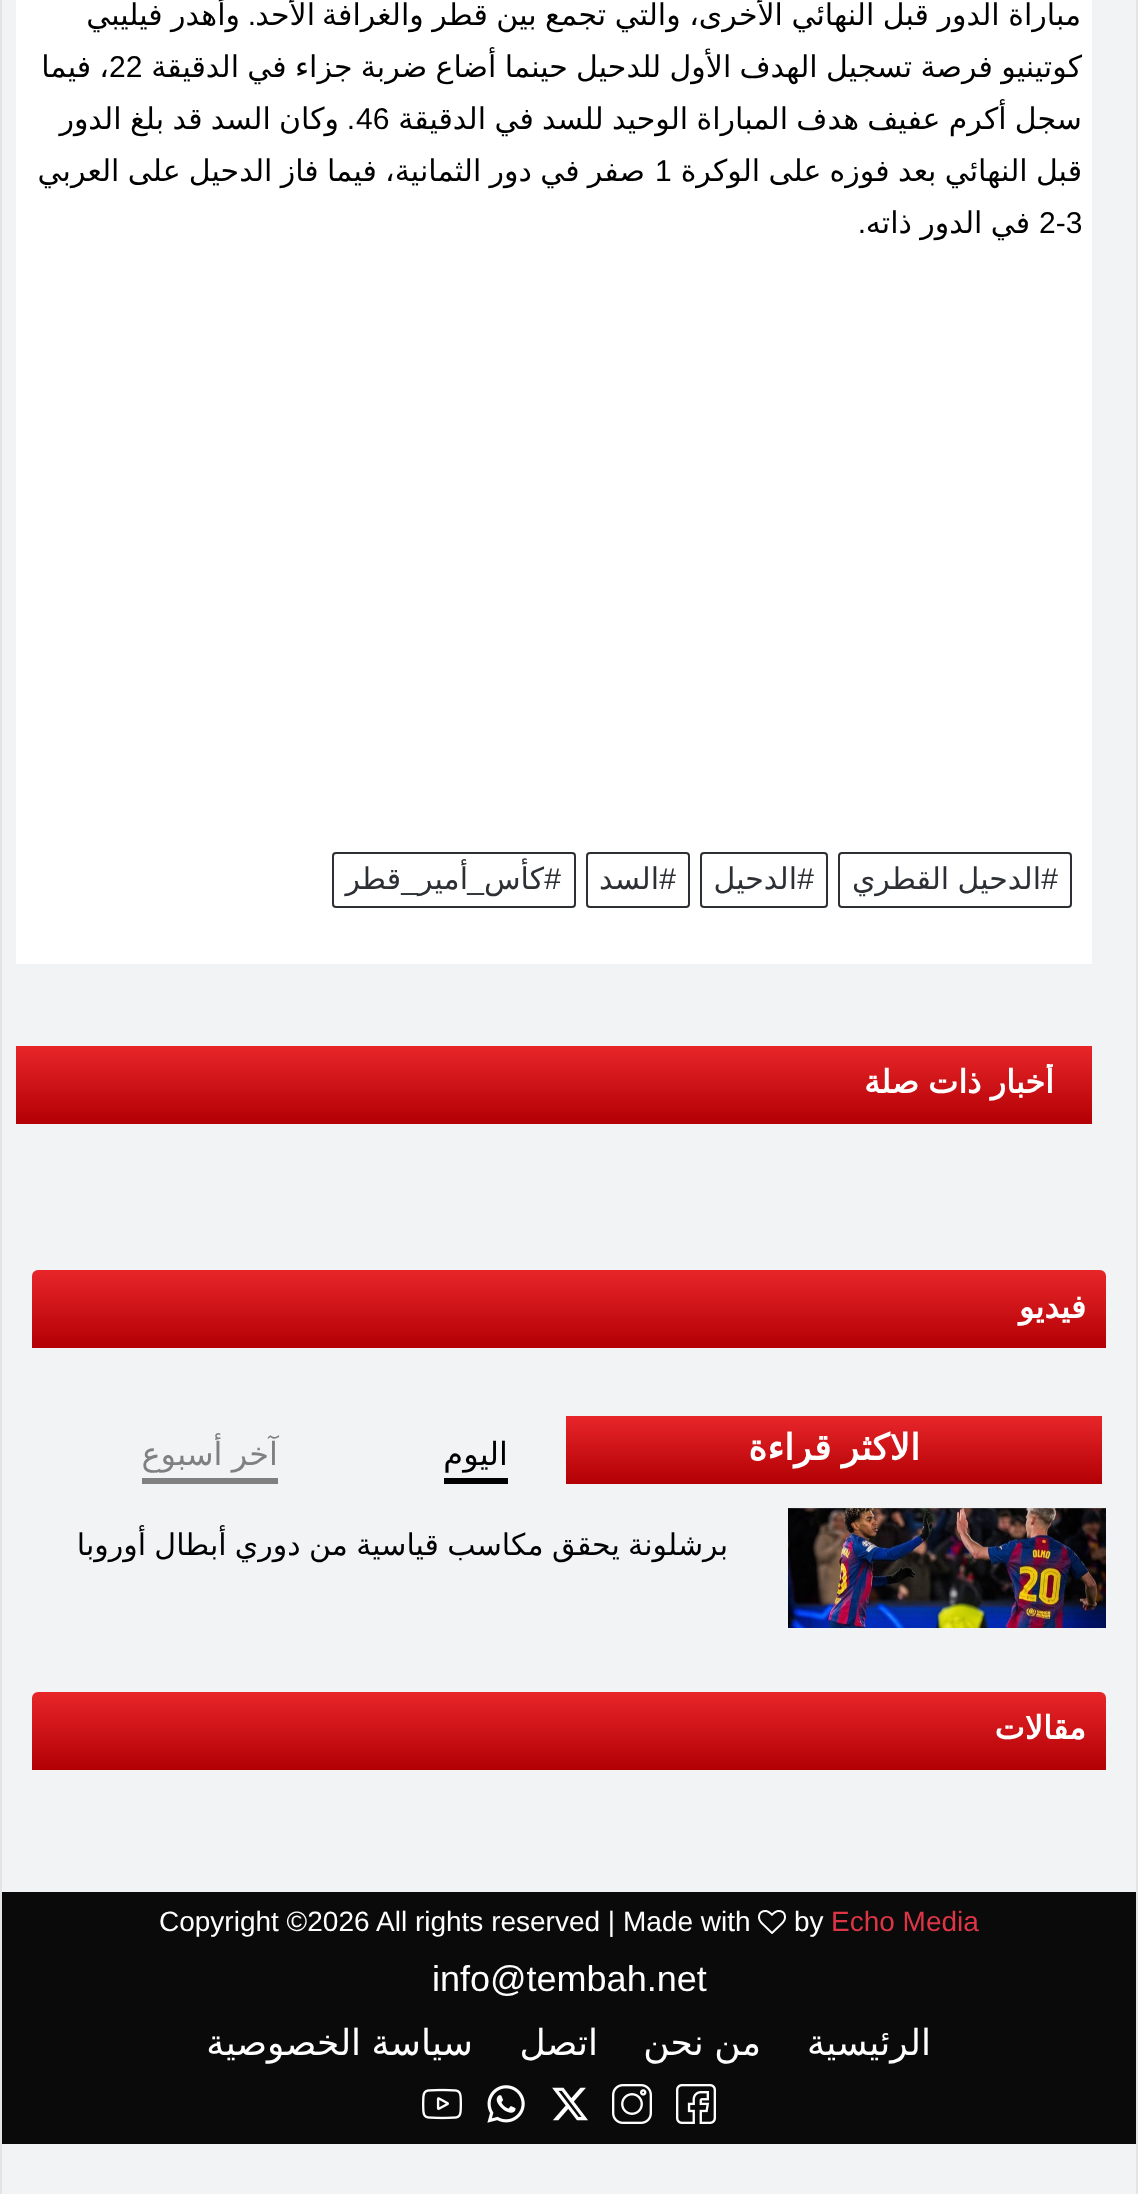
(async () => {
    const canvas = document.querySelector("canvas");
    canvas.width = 1138;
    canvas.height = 2194;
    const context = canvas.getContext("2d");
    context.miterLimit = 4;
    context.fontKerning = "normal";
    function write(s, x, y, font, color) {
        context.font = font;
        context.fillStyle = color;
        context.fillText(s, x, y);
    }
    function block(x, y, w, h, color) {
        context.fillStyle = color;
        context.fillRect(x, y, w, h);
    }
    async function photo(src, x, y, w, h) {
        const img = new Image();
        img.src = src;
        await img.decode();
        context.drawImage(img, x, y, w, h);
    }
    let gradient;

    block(0, 0, 1138, 2194, "rgb(242, 243, 245)");
    block(1136, 0, 2, 2194, "rgb(228, 228, 228)");
    block(0, 0, 2, 2194, "rgb(228, 228, 228)");
    block(16, 0, 1076, 964, "rgb(255, 255, 255)");
    context.wordSpacing = "-1px";
    context.direction = "rtl";
    write("مباراة الدور قبل النهائي الأخرى، والتي تجمع بين قطر والغرافة", 1081, 25, "30px DejaVu Sans", "rgb(0, 0, 0)");
    context.wordSpacing = "0px";
    write("الأحد", 315, 25, "30px DejaVu Sans", "rgb(0, 0, 0)");
    write(".", 256, 25, "30px Liberation Sans", "rgb(0, 0, 0)");
    context.wordSpacing = "-1px";
    write("وأهدر فيليبي", 240, 25, "30px DejaVu Sans", "rgb(0, 0, 0)");
    context.wordSpacing = "-1.25px";
    write("كوتينيو فرصة تسجيل الهدف الأول للدحيل حينما أضاع ضربة جزاء في الدقيقة", 1082, 77, "30px DejaVu Sans", "rgb(0, 0, 0)");
    context.wordSpacing = "0px";
    context.direction = "ltr";
    write("22", 109, 77, "30px Liberation Sans", "rgb(0, 0, 0)");
    context.wordSpacing = "-1.25px";
    context.direction = "rtl";
    write("، فيما", 109, 77, "30px DejaVu Sans", "rgb(0, 0, 0)");
    write("سجل أكرم عفيف هدف المباراة الوحيد للسد في الدقيقة", 1082, 129, "30px DejaVu Sans", "rgb(0, 0, 0)");
    context.wordSpacing = "0px";
    context.direction = "ltr";
    write("46", 356, 129, "30px Liberation Sans", "rgb(0, 0, 0)");
    context.direction = "rtl";
    write(".", 355, 129, "30px Liberation Sans", "rgb(0, 0, 0)");
    context.wordSpacing = "-1.25px";
    write("وكان السد قد بلغ الدور", 339, 129, "30px DejaVu Sans", "rgb(0, 0, 0)");
    write("قبل النهائي بعد فوزه على الوكرة", 1082, 181, "30px DejaVu Sans", "rgb(0, 0, 0)");
    context.wordSpacing = "0px";
    context.direction = "ltr";
    write("1", 655, 181, "30px Liberation Sans", "rgb(0, 0, 0)");
    context.wordSpacing = "-1.25px";
    context.direction = "rtl";
    write("صفر في دور الثمانية، فيما فاز الدحيل على العربي", 645, 181, "30px DejaVu Sans", "rgb(0, 0, 0)");
    context.wordSpacing = "0px";
    context.direction = "ltr";
    write("2-3", 1039, 233, "30px Liberation Sans", "rgb(0, 0, 0)");
    context.wordSpacing = "-1.25px";
    context.direction = "rtl";
    write("في الدور ذاته", 1030, 233, "30px DejaVu Sans", "rgb(0, 0, 0)");
    context.wordSpacing = "0px";
    write(".", 866, 233, "30px Liberation Sans", "rgb(0, 0, 0)");
    context.beginPath();
    context.roundRect(839, 853, 232, 54, 3);
    context.strokeStyle = "rgb(44, 47, 52)";
    context.lineWidth = 2;
    context.stroke();
    write("#", 1058, 889, "30px Liberation Sans", "rgb(44, 47, 52)");
    context.wordSpacing = "-1.25px";
    write("الدحيل القطري", 1041, 889, "30px DejaVu Sans", "rgb(44, 47, 52)");
    context.beginPath();
    context.roundRect(701, 853, 126, 54, 3);
    context.stroke();
    context.wordSpacing = "0px";
    write("#", 814, 889, "30px Liberation Sans", "rgb(44, 47, 52)");
    write("الدحيل", 797, 889, "30px DejaVu Sans", "rgb(44, 47, 52)");
    context.beginPath();
    context.roundRect(587, 853, 102, 54, 3);
    context.stroke();
    write("#", 676, 889, "30px Liberation Sans", "rgb(44, 47, 52)");
    write("السد", 659, 889, "30px DejaVu Sans", "rgb(44, 47, 52)");
    context.beginPath();
    context.roundRect(333, 853, 242, 54, 3);
    context.stroke();
    write("كأس", 544, 889, "30px DejaVu Sans", "rgb(44, 47, 52)");
    write("#", 561, 889, "30px Liberation Sans", "rgb(44, 47, 52)");
    write("_", 418, 889, "30px Liberation Sans", "rgb(44, 47, 52)");
    write("أمير", 468, 889, "30px DejaVu Sans", "rgb(44, 47, 52)");
    write("قطر", 401, 889, "30px DejaVu Sans", "rgb(44, 47, 52)");
    write("_", 484, 889, "30px Liberation Sans", "rgb(44, 47, 52)");
    gradient = context.createLinearGradient(554, 1046, 554, 1124);
    gradient.addColorStop(0, "rgb(232, 38, 42)");
    gradient.addColorStop(1, "rgb(178, 0, 4)");
    context.fillStyle = gradient;
    context.fillRect(16, 1046, 1076, 78);
    context.save();
    context.beginPath();
    context.rect(36, 1064, 1036, 38);
    context.clip();
    context.wordSpacing = "-1px";
    write("أخبار ذات صلة", 1054, 1093, "bold 32px DejaVu Sans", "rgb(255, 255, 255)");
    context.restore();
    gradient = context.createLinearGradient(569, 1270, 569, 1348);
    gradient.addColorStop(0, "rgb(232, 38, 42)");
    gradient.addColorStop(1, "rgb(178, 0, 4)");
    context.fillStyle = gradient;
    context.beginPath();
    context.roundRect(32, 1270, 1074, 78, [6, 6, 0, 0]);
    context.fill();
    write("فيديو", 1086, 1318, "bold 32px DejaVu Sans", "rgb(255, 255, 255)");
    gradient = context.createLinearGradient(834, 1416, 834, 1484);
    gradient.addColorStop(0, "rgb(232, 38, 42)");
    gradient.addColorStop(1, "rgb(178, 0, 4)");
    context.fillStyle = gradient;
    context.fillRect(566, 1416, 536, 68);
    context.wordSpacing = "-1px";
    write("الاكثر قراءة", 920, 1460, "bold 36px DejaVu Sans", "rgb(255, 255, 255)");
    context.wordSpacing = "0px";
    write("اليوم", 508, 1465, "32px DejaVu Sans", "rgb(0, 0, 0)");
    block(444, 1478, 64, 6, "rgb(0, 0, 0)");
    context.wordSpacing = "-1px";
    write("آخر أسبوع", 278, 1465, "32px DejaVu Sans", "rgb(128, 128, 128)");
    block(142, 1478, 136, 6, "rgb(128, 128, 128)");
    await photo("media/1.png", 788, 1508, 318, 120);
    context.wordSpacing = "-1.25px";
    write("برشلونة يحقق مكاسب قياسية من دوري أبطال أوروبا", 728, 1555, "30px DejaVu Sans", "rgb(0, 0, 0)");
    gradient = context.createLinearGradient(569, 1692, 569, 1770);
    gradient.addColorStop(0, "rgb(232, 38, 42)");
    gradient.addColorStop(1, "rgb(178, 0, 4)");
    context.fillStyle = gradient;
    context.beginPath();
    context.roundRect(32, 1692, 1074, 78, [6, 6, 0, 0]);
    context.fill();
    context.wordSpacing = "0px";
    write("مقالات", 1086, 1739, "bold 32px DejaVu Sans", "rgb(255, 255, 255)");
    block(2, 1892, 1134, 252, "rgb(10, 10, 10)");
    context.direction = "ltr";
    write("Echo Media", 831, 1931, "28px Liberation Sans", "rgb(220, 53, 69)");
    write("by", 794, 1931, "28px Liberation Sans", "rgb(255, 255, 255)");
    await photo("media/2.png", 758, 1910, 28, 24);
    write("All rights reserved | Made with", 376, 1931, "28px Liberation Sans", "rgb(255, 255, 255)");
    write("Copyright ©2026", 159, 1931, "28px Liberation Sans", "rgb(255, 255, 255)");
    write("info@tembah.net", 432, 1991, "36px Liberation Sans", "rgb(255, 255, 255)");
    context.direction = "rtl";
    write("الرئيسية", 931, 2055, "36px DejaVu Sans", "rgb(255, 255, 255)");
    context.wordSpacing = "-1px";
    write("من نحن", 761, 2055, "36px DejaVu Sans", "rgb(255, 255, 255)");
    context.wordSpacing = "0px";
    write("اتصل", 598, 2055, "36px DejaVu Sans", "rgb(255, 255, 255)");
    context.wordSpacing = "-1px";
    write("سياسة الخصوصية", 473, 2055, "36px DejaVu Sans", "rgb(255, 255, 255)");
    await photo("media/3.png", 676, 2084, 40, 40);
    await photo("media/4.png", 612, 2084, 40, 40);
    await photo("media/5.png", 552, 2087, 36, 34);
    await photo("media/6.png", 487, 2085, 38, 38);
    await photo("media/7.png", 422, 2088, 40, 32);
})();
